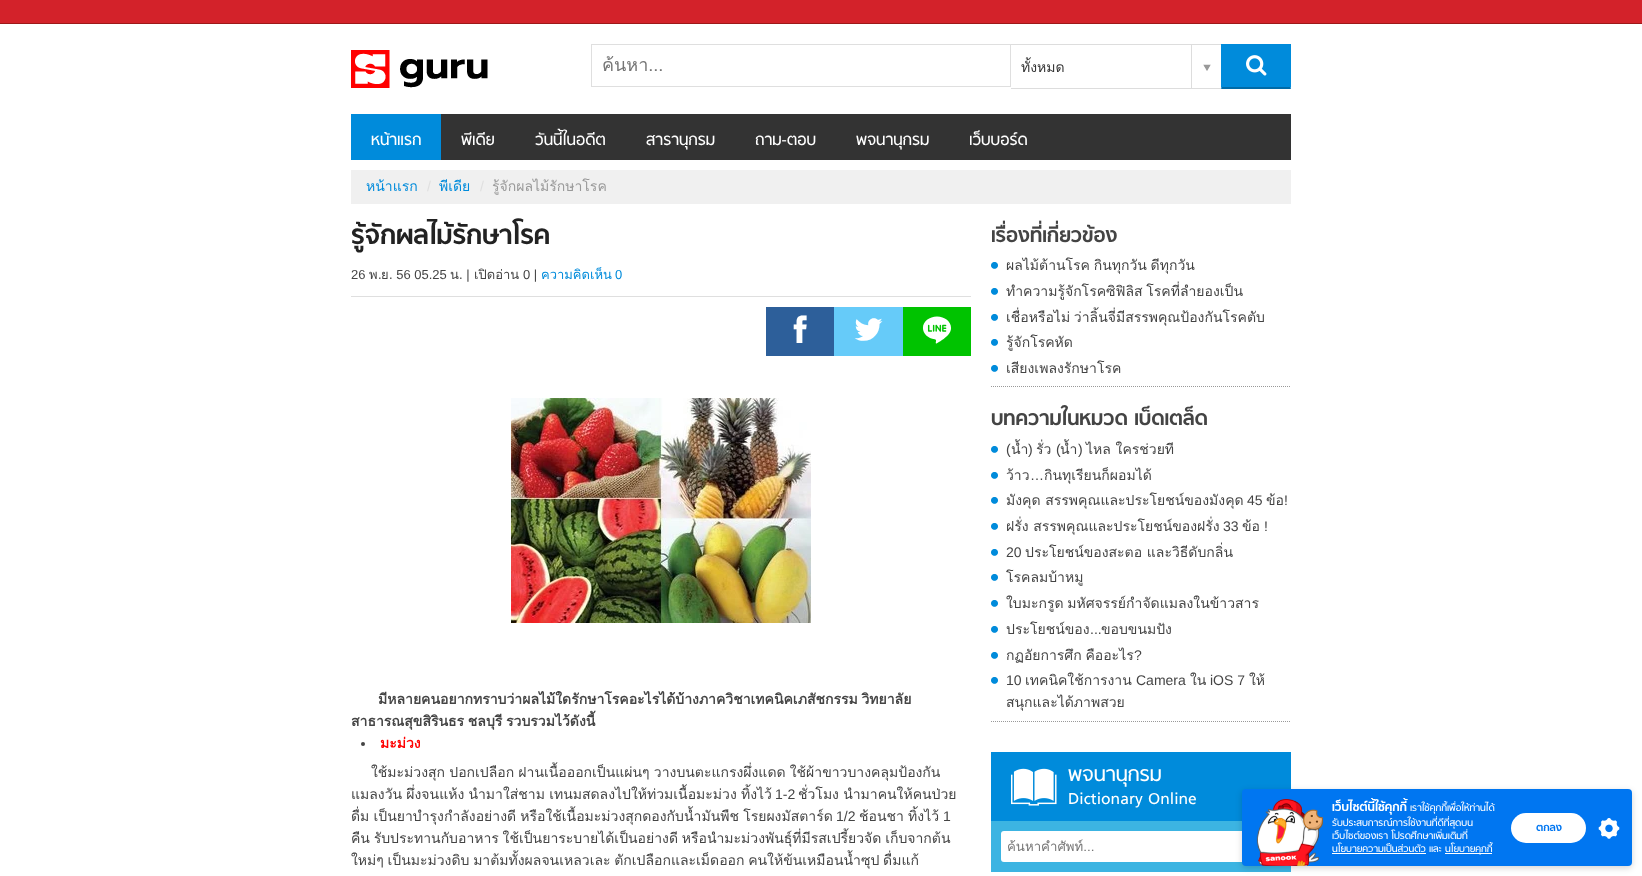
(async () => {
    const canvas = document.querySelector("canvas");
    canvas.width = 1642;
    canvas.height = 876;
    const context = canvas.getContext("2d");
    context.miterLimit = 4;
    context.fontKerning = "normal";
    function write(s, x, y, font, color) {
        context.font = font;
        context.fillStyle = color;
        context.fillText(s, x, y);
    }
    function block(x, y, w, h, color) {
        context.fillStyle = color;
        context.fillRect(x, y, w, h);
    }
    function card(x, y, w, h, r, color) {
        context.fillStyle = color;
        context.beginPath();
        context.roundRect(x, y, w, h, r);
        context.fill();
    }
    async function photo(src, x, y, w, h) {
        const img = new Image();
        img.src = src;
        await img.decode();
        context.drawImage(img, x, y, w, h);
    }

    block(0, 0, 1642, 876, "rgb(255, 255, 255)");
    block(0, 0, 1642, 23, "rgb(211, 34, 42)");
    block(0, 23, 1642, 1, "rgb(157, 25, 25)");
    await photo("media/1.png", 351, 50, 137, 38);
    context.strokeStyle = "rgb(223, 223, 223)";
    context.strokeRect(591.5, 44.5, 419, 42);
    context.save();
    context.beginPath();
    context.rect(602, 50, 398, 29);
    context.clip();
    write("ค้นหา...", 602, 71, "18px Loma", "rgb(117, 117, 117)");
    context.restore();
    block(1011, 44, 210, 1, "rgb(221, 221, 221)");
    block(1011, 88, 210, 1, "rgb(221, 221, 221)");
    write("ทั้งหมด", 1021, 72, "14px Loma", "rgb(51, 51, 51)");
    await photo("media/2.png", 1203, 64, 8, 7);
    block(1191, 45, 1, 43, "rgb(221, 221, 221)");
    block(1222, 45, 68, 42, "rgb(0, 139, 219)");
    block(1221, 44, 70, 1, "rgb(0, 139, 219)");
    context.beginPath();
    context.moveTo(1291, 44);
    context.lineTo(1291, 89);
    context.lineTo(1290, 87);
    context.lineTo(1290, 45);
    context.closePath();
    context.fill();
    context.fillStyle = "rgb(0, 107, 168)";
    context.beginPath();
    context.moveTo(1291, 89);
    context.lineTo(1221, 89);
    context.lineTo(1222, 87);
    context.lineTo(1290, 87);
    context.closePath();
    context.fill();
    context.fillStyle = "rgb(0, 139, 219)";
    context.beginPath();
    context.moveTo(1221, 89);
    context.lineTo(1221, 44);
    context.lineTo(1222, 45);
    context.lineTo(1222, 87);
    context.closePath();
    context.fill();
    await photo("media/3.png", 1246, 55, 21, 21);
    block(441, 114, 850, 46, "rgb(51, 51, 51)");
    block(351, 114, 90, 46, "rgb(0, 139, 219)");
    write("หน้าแรก", 371, 145, "18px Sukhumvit", "rgb(255, 255, 255)");
    write("พีเดีย", 461, 145, "18px Sukhumvit", "rgb(255, 255, 255)");
    write("วันนี้ในอดีต", 535, 145, "18px Sukhumvit", "rgb(255, 255, 255)");
    write("สารานุกรม", 646, 145, "18px Sukhumvit", "rgb(255, 255, 255)");
    write("ถาม-ตอบ", 755, 145, "18px Sukhumvit", "rgb(255, 255, 255)");
    write("พจนานุกรม", 856, 145, "18px Sukhumvit", "rgb(255, 255, 255)");
    write("เว็บบอร์ด", 969, 145, "18px Sukhumvit", "rgb(255, 255, 255)");
    block(351, 170, 940, 34, "rgb(240, 240, 240)");
    write("หน้าแรก", 366, 191, "14px Loma", "rgb(0, 139, 219)");
    write("/", 427, 191, "14px Liberation Sans", "rgb(223, 223, 223)");
    write("พีเดีย", 439, 191, "14px Loma", "rgb(0, 139, 219)");
    write("/", 480, 191, "14px Liberation Sans", "rgb(223, 223, 223)");
    write("รู้จักผลไม้รักษาโรค", 492, 191, "14px Loma", "rgb(153, 153, 153)");
    write("รู้จักผลไม้รักษาโรค", 351, 244, "bold 30px Sukhumvit", "rgb(34, 34, 34)");
    block(351, 296, 620, 1, "rgb(223, 223, 223)");
    write("26", 351, 279, "13px Liberation Sans", "rgb(68, 68, 68)");
    write("พ", 369, 279, "13px Loma", "rgb(68, 68, 68)");
    write(".", 378, 279, "13px Liberation Sans", "rgb(68, 68, 68)");
    write("ย", 381, 279, "13px Loma", "rgb(68, 68, 68)");
    write(". 56 05.25", 389, 279, "13px Liberation Sans", "rgb(68, 68, 68)");
    write("น", 450, 279, "13px Loma", "rgb(68, 68, 68)");
    write(". |", 459, 279, "13px Liberation Sans", "rgb(68, 68, 68)");
    write("เปิดอ่าน", 474, 279, "13px Loma", "rgb(68, 68, 68)");
    write("0 |", 523, 279, "13px Liberation Sans", "rgb(68, 68, 68)");
    write("ความคิดเห็น", 541, 279, "13px Loma", "rgb(0, 139, 219)");
    write("0", 615, 279, "13px Liberation Sans", "rgb(0, 139, 219)");
    await photo("media/4.png", 766, 307, 205, 49);
    await photo("media/5.png", 511, 398, 300, 225);
    context.wordSpacing = "-1px";
    write("มีหลายคนอยากทราบว่าผลไม้ใดรักษาโรคอะไรได้บ้างภาควิชาเทคนิคเภสัชกรรม วิทยาลัย", 378, 704, "bold 14px Loma", "rgb(68, 68, 68)");
    write("สาธารณสุขสิรินธร ชลบุรี รวบรวมไว้ดังนี้", 351, 726, "bold 14px Loma", "rgb(68, 68, 68)");
    context.beginPath();
    context.arc(363, 744, 2, 0, Math.PI * 2);
    context.fill();
    context.wordSpacing = "0px";
    write("มะม่วง", 380, 748, "bold 14px Loma", "rgb(255, 0, 0)");
    context.wordSpacing = "-0.5px";
    write("ใช้มะม่วงสุก ปอกเปลือก ฝานเนื้อออกเป็นแผ่นๆ วางบนตะแกรงผึ่งแดด ใช้ผ้าขาวบางคลุมป้องกัน", 371, 777, "14px Loma", "rgb(68, 68, 68)");
    write("แมลงวัน ผึ่งจนแห้ง นำมาใส่ชาม เทนมสดลงไปให้ท่วมเนื้อมะม่วง ทิ้งไว้", 351, 799, "14px Loma", "rgb(68, 68, 68)");
    context.wordSpacing = "0px";
    write("1-2", 775, 799, "14px Liberation Sans", "rgb(68, 68, 68)");
    context.wordSpacing = "-0.5px";
    write("ชั่วโมง นำมาคนให้คนป่วย", 798, 799, "14px Loma", "rgb(68, 68, 68)");
    write("ดื่ม เป็นยาบำรุงกำลังอย่างดี หรือใช้เนื้อมะม่วงสุกดองกับน้ำมันพืช โรยผงมัสตาร์ด", 351, 821, "14px Loma", "rgb(68, 68, 68)");
    context.wordSpacing = "0px";
    write("1/2", 836, 821, "14px Liberation Sans", "rgb(68, 68, 68)");
    context.wordSpacing = "-0.5px";
    write("ช้อนชา ทิ้งไว้", 859, 821, "14px Loma", "rgb(68, 68, 68)");
    context.wordSpacing = "0px";
    write("1", 943, 821, "14px Liberation Sans", "rgb(68, 68, 68)");
    context.wordSpacing = "-1px";
    write("คืน รับประทานกับอาหาร ใช้เป็นยาระบายได้เป็นอย่างดี หรือนำมะม่วงพันธุ์ที่มีรสเปรี้ยวจัด เก็บจากต้น", 351, 843, "14px Loma", "rgb(68, 68, 68)");
    write("ใหม่ๆ เป็นมะม่วงดิบ มาต้มทั้งผลจนเหลวเละ ตักเปลือกและเม็ดออก คนให้ข้นเหมือนน้ำซุป ดื่มแก้", 351, 865, "14px Loma", "rgb(68, 68, 68)");
    context.beginPath();
    context.moveTo(991, 386.5);
    context.lineTo(1291, 386.5);
    context.strokeStyle = "rgb(153, 153, 153)";
    context.setLineDash([1, 1]);
    context.stroke();
    context.wordSpacing = "0px";
    write("เรื่องที่เกี่ยวข้อง", 991, 242, "bold 23px Sukhumvit", "rgb(68, 68, 68)");
    await photo("media/6.png", 991, 262, 7, 7);
    context.wordSpacing = "-1px";
    write("ผลไม้ต้านโรค กินทุกวัน ดีทุกวัน", 1006, 270, "14px Loma", "rgb(68, 68, 68)");
    await photo("media/6.png", 991, 288, 7, 7);
    write("ทำความรู้จักโรคซิฟิลิส โรคที่ลำยองเป็น", 1006, 296, "14px Loma", "rgb(68, 68, 68)");
    await photo("media/6.png", 991, 314, 7, 7);
    write("เชื่อหรือไม่ ว่าลิ้นจี่มีสรรพคุณป้องกันโรคตับ", 1006, 322, "14px Loma", "rgb(68, 68, 68)");
    await photo("media/6.png", 991, 339, 7, 7);
    context.wordSpacing = "0px";
    write("รู้จักโรคหัด", 1006, 347, "14px Loma", "rgb(68, 68, 68)");
    await photo("media/6.png", 991, 365, 7, 7);
    write("เสียงเพลงรักษาโรค", 1006, 373, "14px Loma", "rgb(68, 68, 68)");
    context.beginPath();
    context.moveTo(991, 721.5);
    context.lineTo(1291, 721.5);
    context.stroke();
    write("บทความในหมวด เบ็ดเตล็ด", 991, 425, "bold 23px Sukhumvit", "rgb(68, 68, 68)");
    await photo("media/6.png", 991, 446, 7, 7);
    write("(", 1006, 454, "14px Liberation Sans", "rgb(68, 68, 68)");
    write("น้ำ", 1011, 454, "14px Loma", "rgb(68, 68, 68)");
    write(")", 1028, 454, "14px Liberation Sans", "rgb(68, 68, 68)");
    write("รั่ว", 1036, 454, "14px Loma", "rgb(68, 68, 68)");
    write("(", 1056, 454, "14px Liberation Sans", "rgb(68, 68, 68)");
    write("น้ำ", 1060, 454, "14px Loma", "rgb(68, 68, 68)");
    write("ไหล ใครช่วยที", 1086, 454, "14px Loma", "rgb(68, 68, 68)");
    write(")", 1078, 454, "14px Liberation Sans", "rgb(68, 68, 68)");
    await photo("media/6.png", 991, 472, 7, 7);
    write("ว้าว", 1006, 480, "14px Loma", "rgb(68, 68, 68)");
    write("…", 1030, 480, "14px Liberation Sans", "rgb(68, 68, 68)");
    write("กินทุเรียนก็ผอมได้", 1044, 480, "14px Loma", "rgb(68, 68, 68)");
    await photo("media/6.png", 991, 497, 7, 7);
    write("มังคุด สรรพคุณและประโยชน์ของมังคุด", 1006, 505, "14px Loma", "rgb(68, 68, 68)");
    write("45", 1247, 505, "14px Liberation Sans", "rgb(68, 68, 68)");
    write("ข้อ", 1266, 505, "14px Loma", "rgb(68, 68, 68)");
    write("!", 1284, 505, "14px Liberation Sans", "rgb(68, 68, 68)");
    await photo("media/6.png", 991, 523, 7, 7);
    write("ฝรั่ง สรรพคุณและประโยชน์ของฝรั่ง", 1006, 531, "14px Loma", "rgb(68, 68, 68)");
    write("33", 1223, 531, "14px Liberation Sans", "rgb(68, 68, 68)");
    write("ข้อ", 1242, 531, "14px Loma", "rgb(68, 68, 68)");
    write("!", 1264, 531, "14px Liberation Sans", "rgb(68, 68, 68)");
    await photo("media/6.png", 991, 549, 7, 7);
    write("20", 1006, 557, "14px Liberation Sans", "rgb(68, 68, 68)");
    write("ประโยชน์ของสะตอ และวิธีดับกลิ่น", 1025, 557, "14px Loma", "rgb(68, 68, 68)");
    await photo("media/6.png", 991, 574, 7, 7);
    write("โรคลมบ้าหมู", 1006, 582, "14px Loma", "rgb(68, 68, 68)");
    await photo("media/6.png", 991, 600, 7, 7);
    context.wordSpacing = "-1px";
    write("ใบมะกรูด มหัศจรรย์กำจัดแมลงในข้าวสาร", 1006, 608, "14px Loma", "rgb(68, 68, 68)");
    await photo("media/6.png", 991, 626, 7, 7);
    context.wordSpacing = "0px";
    write("ประโยชน์ของ", 1006, 634, "14px Loma", "rgb(68, 68, 68)");
    write("...", 1090, 634, "14px Liberation Sans", "rgb(68, 68, 68)");
    write("ขอบขนมปัง", 1101, 634, "14px Loma", "rgb(68, 68, 68)");
    await photo("media/6.png", 991, 652, 7, 7);
    context.wordSpacing = "-1px";
    write("กฏอัยการศึก คืออะไร", 1006, 660, "14px Loma", "rgb(68, 68, 68)");
    context.wordSpacing = "0px";
    write("?", 1134, 660, "14px Liberation Sans", "rgb(68, 68, 68)");
    await photo("media/6.png", 991, 677, 7, 7);
    write("10", 1006, 685, "14px Liberation Sans", "rgb(68, 68, 68)");
    write("เทคนิคใช้การงาน", 1025, 685, "14px Loma", "rgb(68, 68, 68)");
    write("Camera", 1136, 685, "14px Liberation Sans", "rgb(68, 68, 68)");
    write("ใน", 1190, 685, "14px Loma", "rgb(68, 68, 68)");
    write("iOS 7", 1210, 685, "14px Liberation Sans", "rgb(68, 68, 68)");
    write("ให้", 1249, 685, "14px Loma", "rgb(68, 68, 68)");
    write("สนุกและได้ภาพสวย", 1006, 707, "14px Loma", "rgb(68, 68, 68)");
    block(991, 752, 300, 69, "rgb(0, 139, 219)");
    await photo("media/7.png", 1011, 768, 46, 38);
    write("พจนานุกรม", 1068, 781, "23px Sukhumvit", "rgb(255, 255, 255)");
    write("Dictionary Online", 1068, 804, "18px Sukhumvit", "rgb(255, 255, 255)");
    block(991, 821, 300, 51, "rgb(60, 180, 226)");
    card(1001, 831, 280, 31, 3, "rgb(255, 255, 255)");
    context.save();
    context.beginPath();
    context.rect(1007, 836, 241, 21);
    context.clip();
    write("ค้นหาคำศัพท์...", 1007, 851, "13.25px Loma", "rgb(117, 117, 117)");
    context.restore();
    context.fillStyle = "rgba(0, 0, 0, 0.17)";
    context.filter = "blur(3px)";
    context.beginPath();
    context.roundRect(1242, 791, 390, 77, 4);
    context.fill();
    context.filter = "none";
    card(1242, 789, 390, 77, 4, "rgb(0, 118, 241)");
    await photo("media/8.png", 1256, 799, 67, 67);
    write("เว็บไซต์นี้ใช้คุกกี้", 1332, 811, "bold 13.75px 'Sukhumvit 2'", "rgb(255, 255, 255)");
    write("เราใช้คุกกี้เพื่อให้ท่านได้", 1410, 811, "11px 'Sukhumvit 2'", "rgb(255, 255, 255)");
    write("รับประสบการณ์การใช้งานที่ดีที่สุดบน", 1332, 826, "11px 'Sukhumvit 2'", "rgb(255, 255, 255)");
    write("เว็บไซต์ของเรา โปรดศึกษาเพิ่มเติมที่", 1332, 839, "11px 'Sukhumvit 2'", "rgb(255, 255, 255)");
    write("นโยบายความเป็นส่วนตัว และ", 1332, 852, "11px 'Sukhumvit 2'", "rgb(255, 255, 255)");
    block(1332, 853, 94, 1, "rgb(255, 255, 255)");
    block(1445, 853, 47, 1, "rgb(255, 255, 255)");
    write("นโยบายคุกกี้", 1445, 852, "11px 'Sukhumvit 2'", "rgb(255, 255, 255)");
    card(1511, 813, 75, 30, 15, "rgb(255, 255, 255)");
    write("ตกลง", 1536, 831, "bold 12px 'Sukhumvit 2'", "rgb(0, 118, 241)");
    await photo("media/9.png", 1598, 818, 22, 21);
})();
